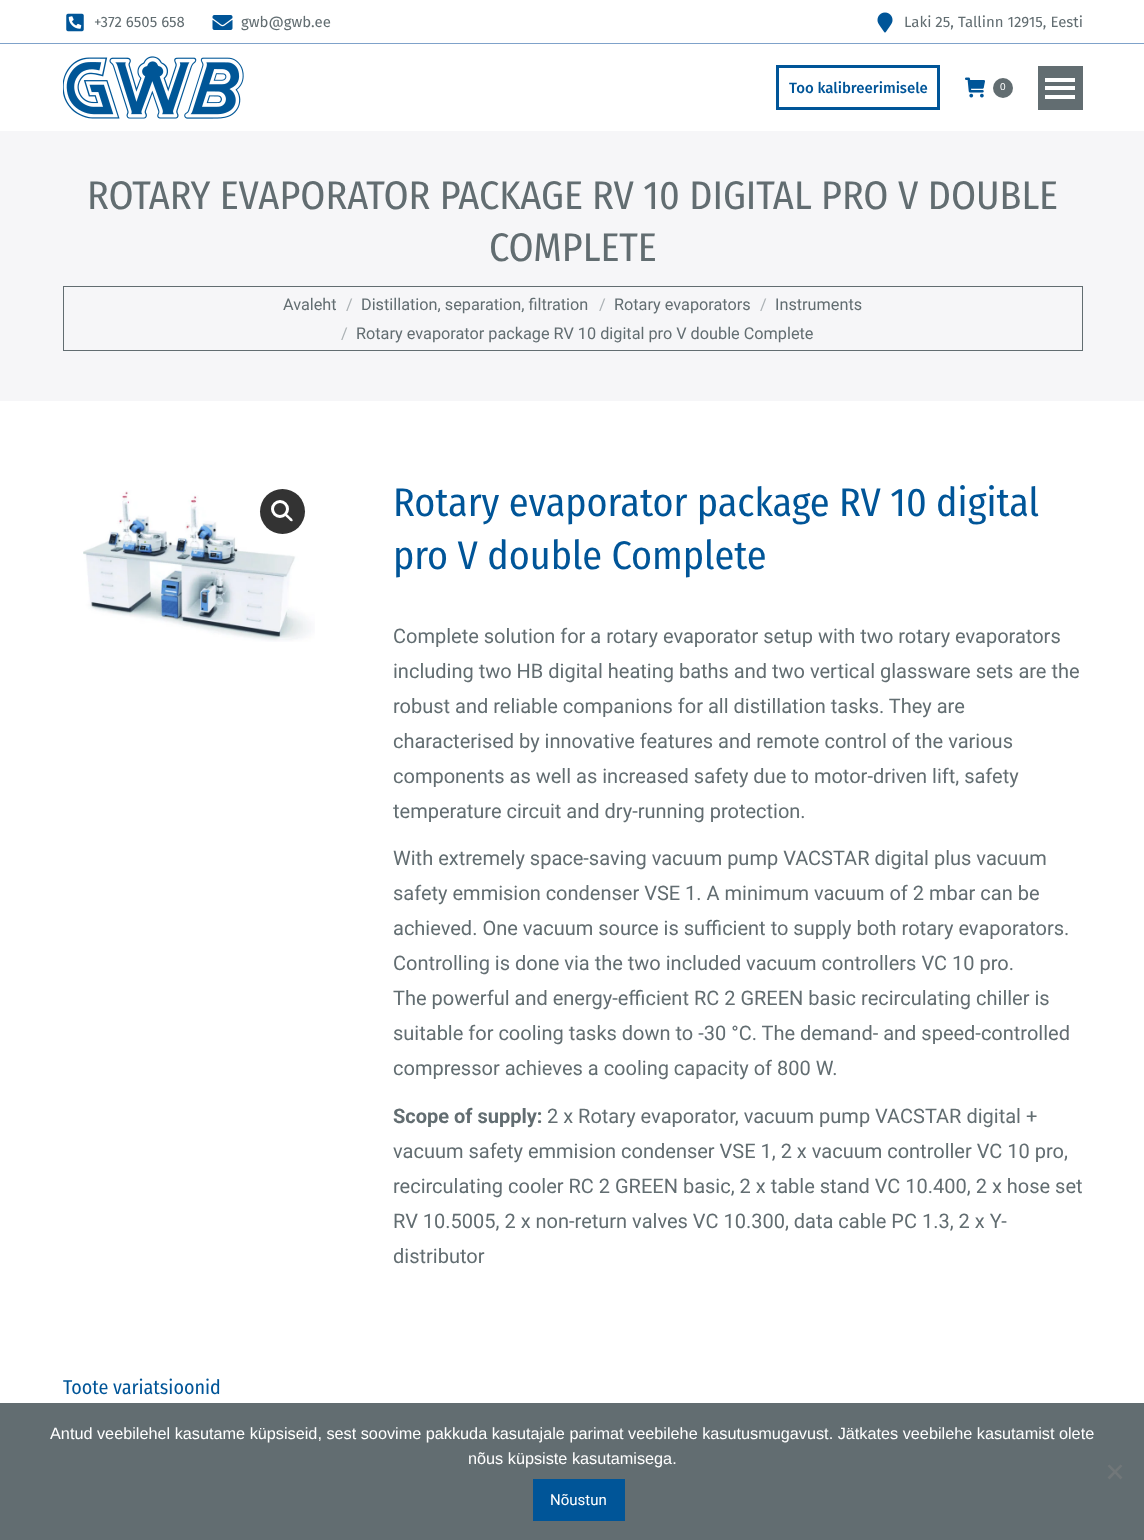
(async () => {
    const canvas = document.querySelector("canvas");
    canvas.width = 1144;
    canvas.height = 1540;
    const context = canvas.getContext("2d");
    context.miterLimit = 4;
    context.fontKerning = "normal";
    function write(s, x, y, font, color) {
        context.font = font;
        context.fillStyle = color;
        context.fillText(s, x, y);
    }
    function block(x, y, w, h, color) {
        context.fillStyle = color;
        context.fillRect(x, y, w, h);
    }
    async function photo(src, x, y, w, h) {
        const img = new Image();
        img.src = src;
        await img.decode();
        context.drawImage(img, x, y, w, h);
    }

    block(0, 0, 1144, 1540, "rgb(255, 255, 255)");
    await photo("media/1.png", 66, 13, 18, 19);
    write("+372 6505 658", 94, 27, "15px Fira Sans", "rgb(98, 109, 113)");
    await photo("media/2.png", 212, 15, 21, 15);
    write("gwb@gwb.ee", 241, 27, "15px Fira Sans", "rgb(98, 109, 113)");
    await photo("media/3.png", 877, 12, 16, 21);
    write("Laki 25, Tallinn 12915, Eesti", 904, 27, "15px Fira Sans", "rgb(98, 109, 113)");
    block(0, 43, 1144, 1, "rgb(127, 162, 202)");
    await photo("media/4.png", 63, 56, 181, 63);
    context.strokeStyle = "rgb(0, 85, 152)";
    context.lineWidth = 3;
    context.strokeRect(777.5, 66.5, 161, 42);
    write("Too kalibreerimisele", 789, 93, "500 15px Fira Sans", "rgb(0, 85, 152)");
    await photo("media/5.png", 965, 77, 20, 21);
    context.fillStyle = "rgb(98, 109, 113)";
    context.beginPath();
    context.arc(1003, 88, 10, 0, Math.PI * 2);
    context.fill();
    write("0", 1000, 90, "10px Liberation Sans", "rgb(255, 255, 255)");
    block(1038, 66, 45, 44, "rgb(98, 109, 113)");
    block(1045, 78, 30, 4, "rgb(255, 255, 255)");
    block(1045, 86, 30, 4, "rgb(255, 255, 255)");
    block(1045, 95, 30, 4, "rgb(255, 255, 255)");
    block(0, 131, 1144, 270, "rgb(246, 246, 248)");
    write("ROTARY EVAPORATOR PACKAGE RV 10 DIGITAL PRO V DOUBLE", 87, 209, "40px Fira Sans Condensed", "rgb(98, 109, 113)");
    write("COMPLETE", 489, 261, "40px Fira Sans Condensed", "rgb(98, 109, 113)");
    context.strokeStyle = "rgb(98, 109, 113)";
    context.lineWidth = 1;
    context.strokeRect(63.5, 286.5, 1019, 64);
    write("Avaleht", 283, 310, "16.25px Roboto", "rgb(98, 109, 113)");
    write("/", 346, 310, "16.25px Roboto", "rgb(172, 178, 181)");
    write("Distillation, separation, filtration", 361, 310, "16.25px Roboto", "rgb(98, 109, 113)");
    write("/", 599, 310, "16.25px Roboto", "rgb(172, 178, 181)");
    write("Rotary evaporators", 614, 310, "16.25px Roboto", "rgb(98, 109, 113)");
    write("/", 760, 310, "16.25px Roboto", "rgb(172, 178, 181)");
    write("Instruments", 775, 310, "16.25px Roboto", "rgb(98, 109, 113)");
    write("/", 341, 339, "16.25px Roboto", "rgb(172, 178, 181)");
    write("Rotary evaporator package RV 10 digital pro V double Complete", 356, 339, "16.25px Roboto", "rgb(98, 109, 113)");
    await photo("media/6.png", 83, 490, 232, 152);
    context.fillStyle = "rgb(51, 51, 51)";
    context.beginPath();
    context.arc(282.5, 511.5, 22.5, 0, Math.PI * 2);
    context.fill();
    context.beginPath();
    context.arc(280, 509, 7.5, 0, Math.PI * 2);
    context.strokeStyle = "rgb(255, 255, 255)";
    context.lineWidth = 3;
    context.stroke();
    context.fillStyle = "rgb(255, 255, 255)";
    context.beginPath();
    context.moveTo(285, 514);
    context.bezierCurveTo(286.5, 512.5, 289, 516, 289.5, 516.5);
    context.bezierCurveTo(290.5, 517.5, 293.5, 519.5, 292.5, 521);
    context.bezierCurveTo(291, 522.5, 288.5, 519, 288, 518.5);
    context.bezierCurveTo(287, 517.5, 284, 515.5, 285, 514);
    context.closePath();
    context.fill();
    write("Rotary evaporator package RV 10 digital", 393, 516, "40px Fira Sans Condensed", "rgb(0, 85, 152)");
    write("pro V double Complete", 393, 569, "40px Fira Sans Condensed", "rgb(0, 85, 152)");
    write("Complete solution for a rotary evaporator setup with two rotary evaporators", 393, 643, "20px Roboto", "rgb(98, 109, 113)");
    write("including two HB digital heating baths and two vertical glassware sets are the", 393, 678, "20px Roboto", "rgb(98, 109, 113)");
    write("robust and reliable companions for all distillation tasks. They are", 393, 713, "20px Roboto", "rgb(98, 109, 113)");
    write("characterised by innovative features and remote control of the various", 393, 748, "20px Roboto", "rgb(98, 109, 113)");
    write("components as well as increased safety due to motor-driven lift, safety", 393, 783, "20px Roboto", "rgb(98, 109, 113)");
    write("temperature circuit and dry-running protection.", 393, 818, "20px Roboto", "rgb(98, 109, 113)");
    write("With extremely space-saving vacuum pump VACSTAR digital plus vacuum", 393, 865, "20px Roboto", "rgb(98, 109, 113)");
    write("safety emmision condenser VSE 1. A minimum vacuum of 2 mbar can be", 393, 900, "20px Roboto", "rgb(98, 109, 113)");
    write("achieved. One vacuum source is sufficient to supply both rotary evaporators.", 393, 935, "20px Roboto", "rgb(98, 109, 113)");
    write("Controlling is done via the two included vacuum controllers VC 10 pro.", 393, 970, "20px Roboto", "rgb(98, 109, 113)");
    write("The powerful and energy-efficient RC 2 GREEN basic recirculating chiller is", 393, 1005, "20px Roboto", "rgb(98, 109, 113)");
    write("suitable for cooling tasks down to -30 °C. The demand- and speed-controlled", 393, 1040, "20px Roboto", "rgb(98, 109, 113)");
    write("compressor achieves a cooling capacity of 800 W.", 393, 1075, "20px Roboto", "rgb(98, 109, 113)");
    write("Scope of supply:", 393, 1123, "bold 20px Roboto", "rgb(98, 109, 113)");
    write("2 x Rotary evaporator, vacuum pump VACSTAR digital +", 547, 1123, "20px Roboto", "rgb(98, 109, 113)");
    write("vacuum safety emmision condenser VSE 1, 2 x vacuum controller VC 10 pro,", 393, 1158, "20px Roboto", "rgb(98, 109, 113)");
    write("recirculating cooler RC 2 GREEN basic, 2 x table stand VC 10.400, 2 x hose set", 393, 1193, "20px Roboto", "rgb(98, 109, 113)");
    write("RV 10.5005, 2 x non-return valves VC 10.300, data cable PC 1.3, 2 x Y-", 393, 1228, "20px Roboto", "rgb(98, 109, 113)");
    write("distributor", 393, 1263, "20px Roboto", "rgb(98, 109, 113)");
    write("Toote variatsioonid", 63, 1394, "20px Fira Sans Condensed", "rgb(0, 85, 152)");
    block(0, 1403, 1144, 137, "rgb(98, 109, 113)");
    write("Antud veebilehel kasutame küpsiseid, sest soovime pakkuda kasutajale parimat veebilehe kasutusmugavust. Jätkates veebilehe kasutamist olete", 50, 1439, "16.25px Liberation Sans", "rgb(255, 255, 255)");
    write("nõus küpsiste kasutamisega.", 468, 1464, "16.25px Liberation Sans", "rgb(255, 255, 255)");
    context.fillStyle = "rgb(113, 119, 121)";
    context.beginPath();
    context.moveTo(1120.5, 1464.5);
    context.lineTo(1122.5, 1466);
    context.lineTo(1109.5, 1479.5);
    context.lineTo(1107.5, 1477.5);
    context.closePath();
    context.fill();
    context.beginPath();
    context.moveTo(1107.5, 1466);
    context.lineTo(1109.5, 1464.5);
    context.lineTo(1122.5, 1477.5);
    context.lineTo(1120.5, 1479.5);
    context.closePath();
    context.fill();
    block(533, 1479, 92, 42, "rgb(0, 85, 152)");
    write("Nõustun", 550, 1505, "15px Roboto", "rgb(255, 255, 255)");
})();
